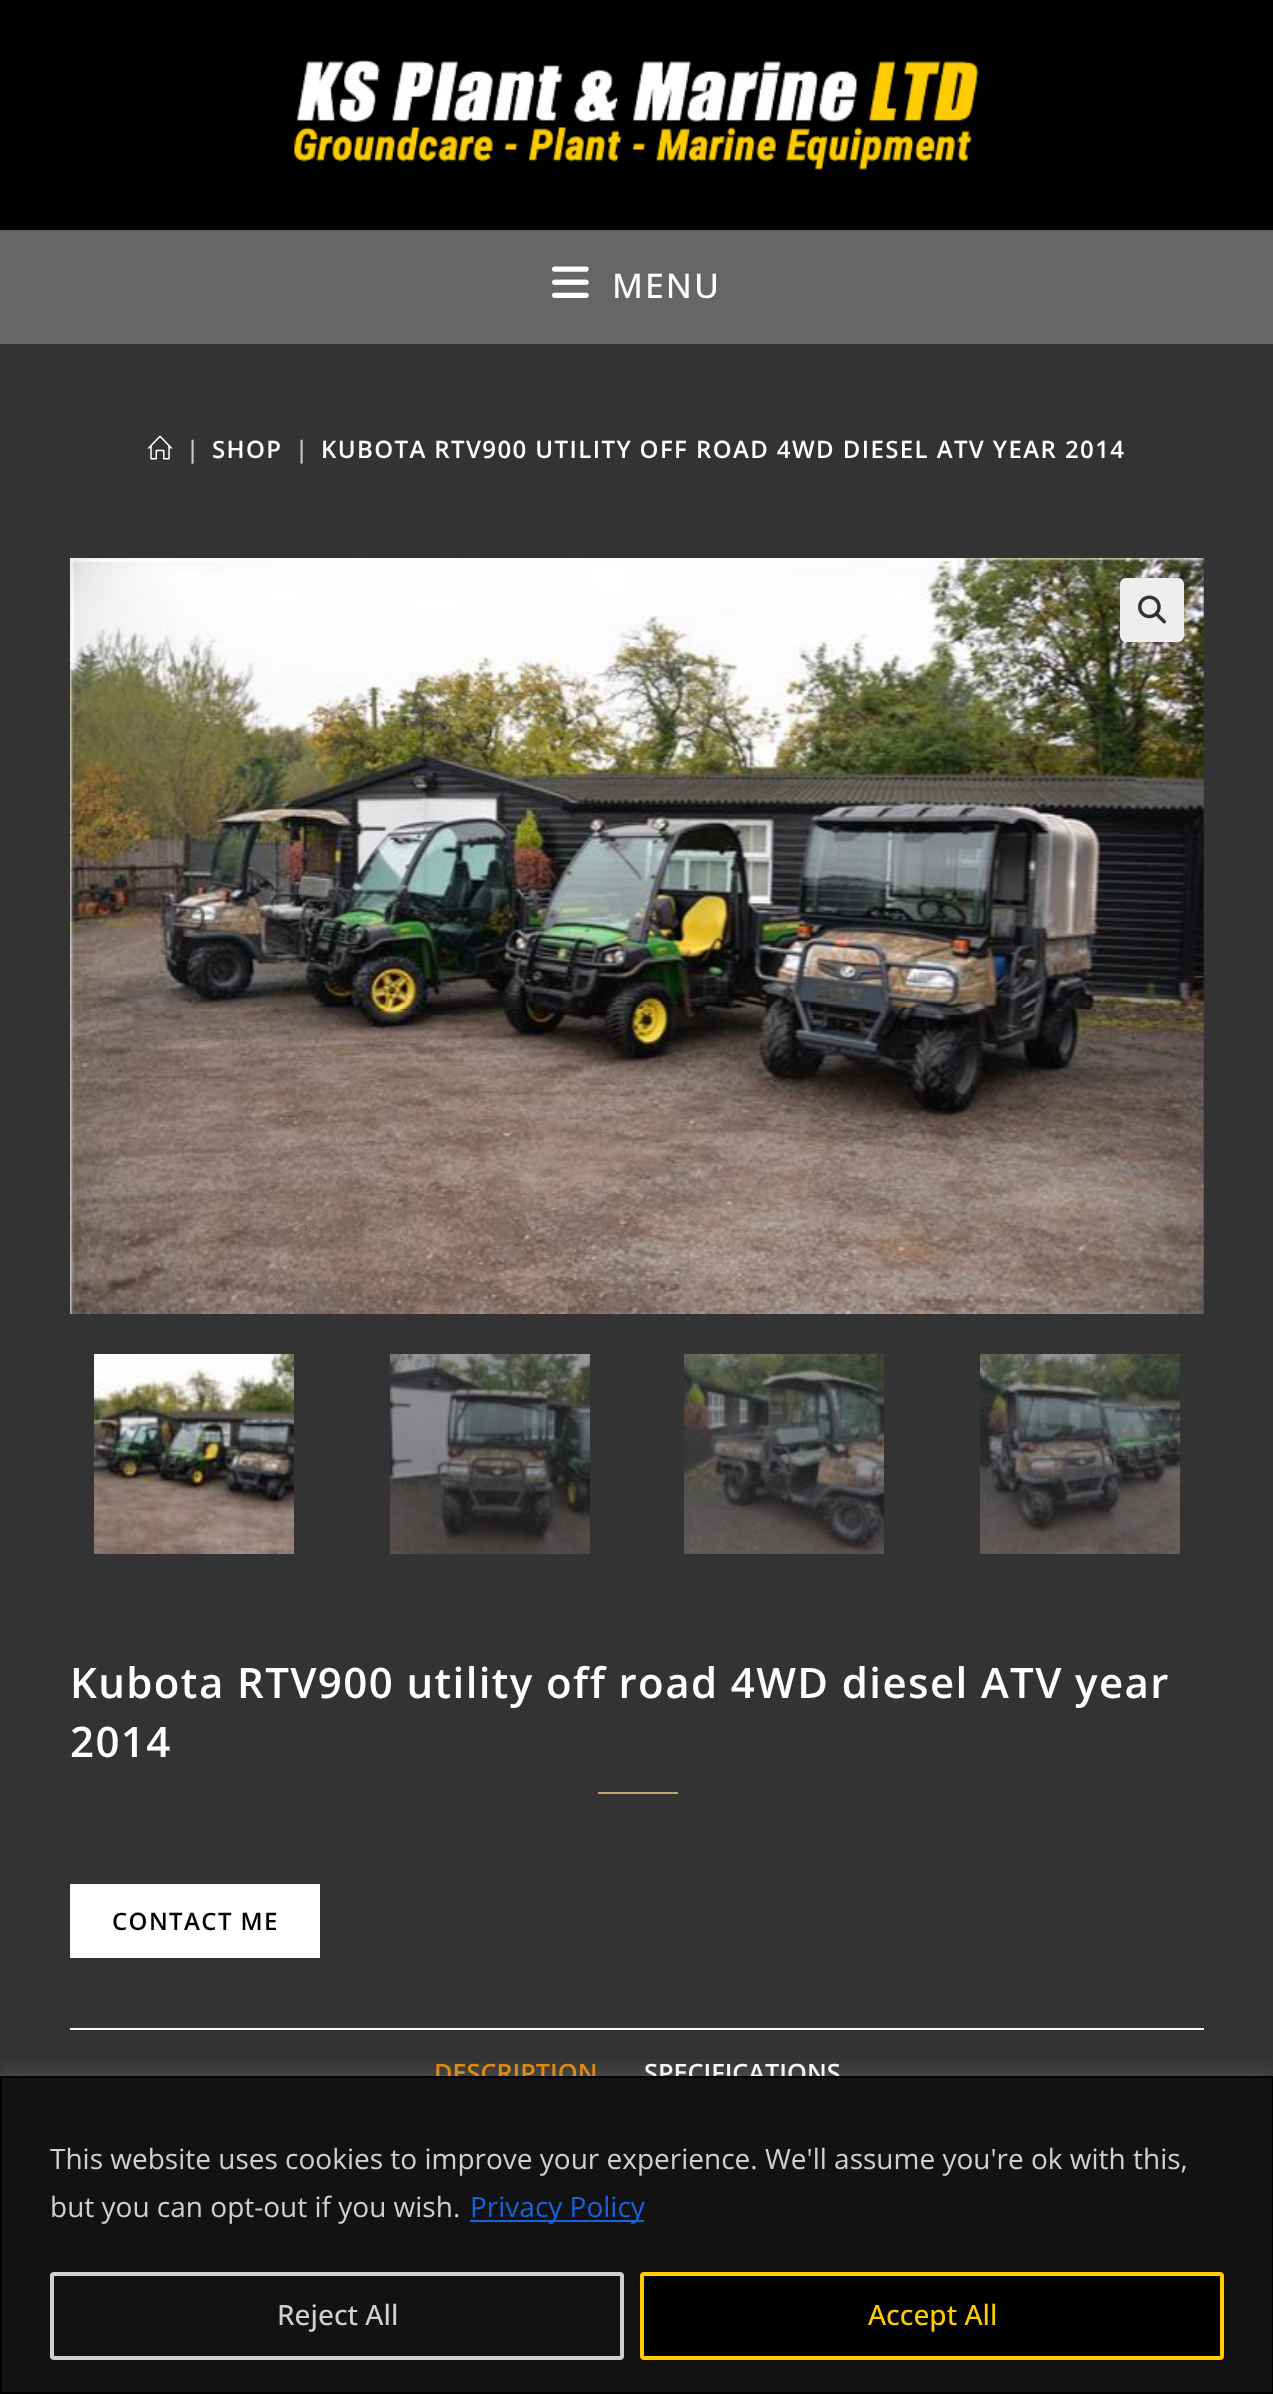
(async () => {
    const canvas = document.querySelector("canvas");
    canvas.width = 1273;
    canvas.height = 2394;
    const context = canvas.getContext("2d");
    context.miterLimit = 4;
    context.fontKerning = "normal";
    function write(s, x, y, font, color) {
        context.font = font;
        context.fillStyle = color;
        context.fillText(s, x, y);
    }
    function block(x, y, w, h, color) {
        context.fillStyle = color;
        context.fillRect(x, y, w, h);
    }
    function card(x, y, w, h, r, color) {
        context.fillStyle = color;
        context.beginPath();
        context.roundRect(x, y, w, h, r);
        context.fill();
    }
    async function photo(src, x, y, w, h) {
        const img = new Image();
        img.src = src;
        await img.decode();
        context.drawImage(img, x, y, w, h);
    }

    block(0, 0, 1273, 2394, "rgb(51, 51, 51)");
    block(0, 0, 1273, 230, "rgb(0, 0, 0)");
    await photo("media/1.png", 294, 60, 685, 110);
    block(0, 230, 1273, 114, "rgb(102, 102, 102)");
    await photo("media/2.png", 552, 266, 37, 32);
    context.letterSpacing = "2px";
    write("MENU", 612, 298, "500 34px Open Sans", "rgb(255, 255, 255)");
    await photo("media/3.png", 148, 435, 24, 25);
    context.letterSpacing = "1.4px";
    write("|", 186, 458, "600 24px Open Sans", "rgb(198, 198, 198)");
    write("SHOP", 212, 458, "600 24px Open Sans", "rgb(255, 255, 255)");
    write("|", 295, 458, "600 24px Open Sans", "rgb(198, 198, 198)");
    write("KUBOTA RTV900 UTILITY OFF ROAD 4WD DIESEL ATV YEAR 2014", 321, 458, "600 24px Open Sans", "rgb(255, 255, 255)");
    await photo("media/4.png", 70, 558, 1134, 756);
    card(1120, 578, 64, 64, 6, "rgb(238, 238, 238)");
    await photo("media/5.png", 1138, 595, 28, 29);
    await photo("media/6.png", 94, 1354, 200, 200);
    await photo("media/7.png", 390, 1354, 200, 200);
    await photo("media/8.png", 684, 1354, 200, 200);
    await photo("media/9.png", 980, 1354, 200, 200);
    write("Kubota RTV900 utility off road 4WD diesel ATV year", 70, 1698, "600 42px Open Sans", "rgb(255, 255, 255)");
    write("2014", 70, 1757, "600 42px Open Sans", "rgb(255, 255, 255)");
    block(598, 1792, 80, 2, "rgb(194, 164, 118)");
    block(70, 1884, 250, 74, "rgb(255, 255, 255)");
    write("CONTACT ME", 112, 1930, "600 24px Open Sans", "rgb(0, 0, 0)");
    block(70, 2028, 1134, 2, "rgb(255, 255, 255)");
    context.letterSpacing = "0px";
    write("DESCRIPTION", 434, 2082, "600 25.25px Open Sans", "rgb(226, 136, 0)");
    write("SPECIFICATIONS", 644, 2082, "600 25.25px Open Sans", "rgb(255, 255, 255)");
    context.fillStyle = "rgba(172, 171, 171, 0.3)";
    context.filter = "blur(10px)";
    context.beginPath();
    context.rect(0, 2074, 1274, 318);
    context.fill();
    context.filter = "none";
    context.fillStyle = "rgb(18, 18, 18)";
    context.beginPath();
    context.rect(1, 2077, 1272, 316);
    context.fill();
    context.strokeStyle = "rgb(0, 0, 0)";
    context.lineWidth = 2;
    context.stroke();
    write("This website uses cookies to improve your experience. We'll assume you're ok with this,", 50, 2169, "28px Open Sans", "rgb(208, 208, 208)");
    write("but you can opt-out if you wish.", 50, 2217, "28px Open Sans", "rgb(208, 208, 208)");
    block(470, 2220, 174, 2, "rgb(24, 99, 220)");
    write("Privacy Policy", 470, 2217, "28px Open Sans", "rgb(24, 99, 220)");
    context.beginPath();
    context.roundRect(52, 2274, 570, 84, 2);
    context.strokeStyle = "rgb(208, 208, 208)";
    context.lineWidth = 4;
    context.stroke();
    write("Reject All", 277, 2325, "500 28px Open Sans", "rgb(208, 208, 208)");
    context.fillStyle = "rgb(0, 0, 0)";
    context.beginPath();
    context.roundRect(642, 2274, 580, 84, 2);
    context.fill();
    context.strokeStyle = "rgb(255, 204, 0)";
    context.stroke();
    write("Accept All", 868, 2325, "500 28px Open Sans", "rgb(255, 204, 0)");
})();
